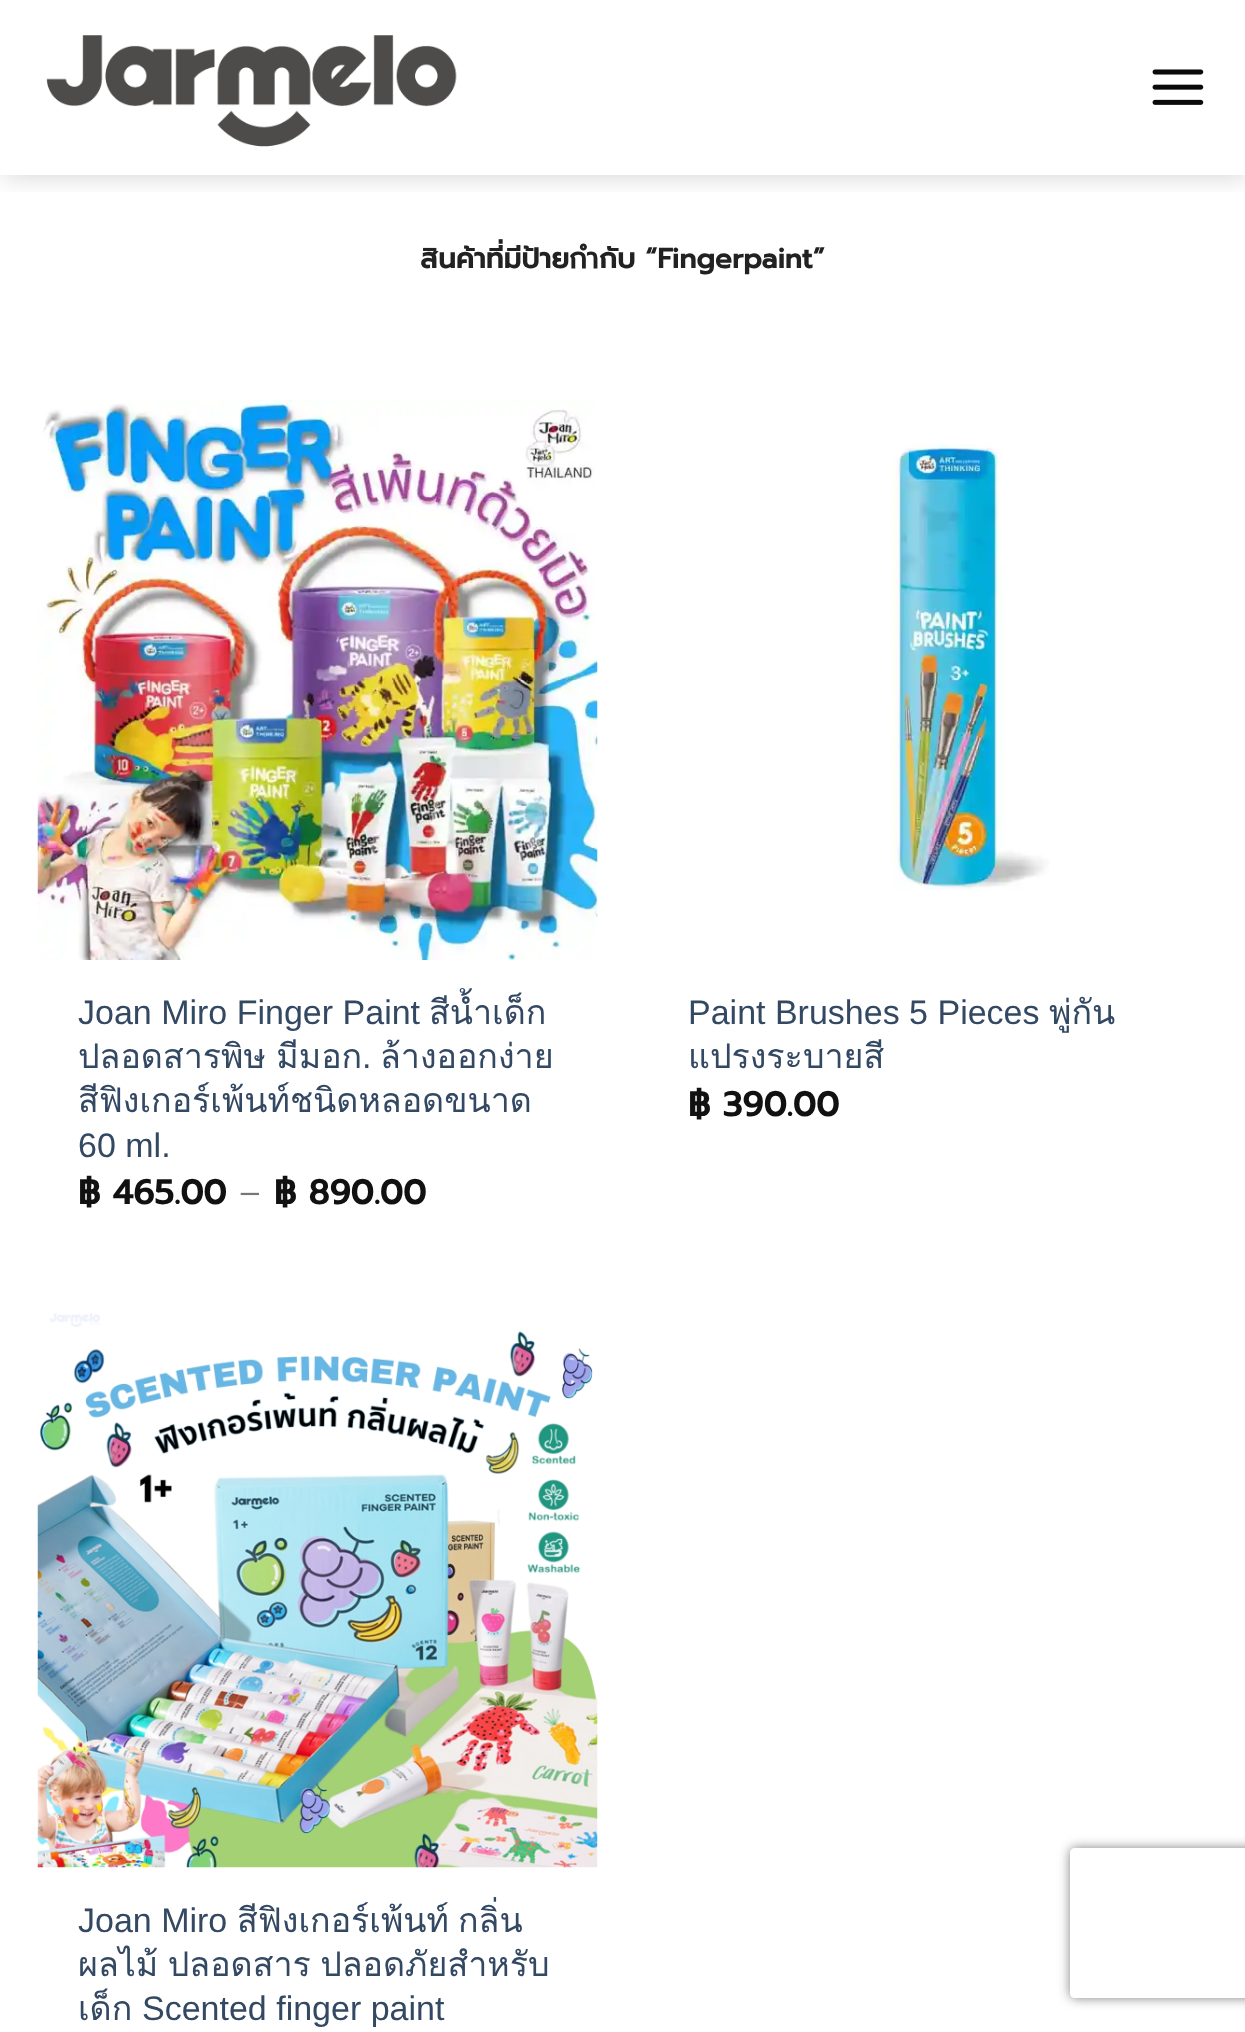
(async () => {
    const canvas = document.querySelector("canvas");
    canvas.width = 1245;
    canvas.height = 2032;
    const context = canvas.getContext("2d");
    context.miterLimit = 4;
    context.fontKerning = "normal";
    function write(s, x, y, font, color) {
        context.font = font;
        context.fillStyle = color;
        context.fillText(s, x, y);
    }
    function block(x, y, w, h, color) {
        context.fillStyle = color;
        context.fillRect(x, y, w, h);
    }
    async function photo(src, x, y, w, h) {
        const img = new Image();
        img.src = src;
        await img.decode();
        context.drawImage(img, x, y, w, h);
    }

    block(0, 0, 1245, 2032, "rgb(255, 255, 255)");
    context.save();
    context.beginPath();
    context.rect(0, 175, 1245, 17);
    context.clip();
    context.fillStyle = "rgba(0, 0, 0, 0.15)";
    context.filter = "blur(12.5px)";
    context.beginPath();
    context.rect(3, 3, 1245, 175);
    context.fill();
    context.filter = "none";
    context.restore();
    await photo("media/1.png", 46, 35, 411, 112);
    await photo("media/2.png", 1152, 69, 52, 36);
    write("สินค้าที่มีป้ายกำกับ “Fingerpaint”", 420, 268, "bold 28px Prompt", "rgb(34, 34, 34)");
    await photo("media/3.png", 37, 400, 561, 560);
    write("Joan Miro Finger Paint", 78, 1024, "34px Liberation Sans", "rgb(51, 72, 98)");
    write("สีน้ำเด็ก", 429, 1024, "34px Loma", "rgb(51, 72, 98)");
    context.wordSpacing = "-1px";
    write("ปลอดสารพิษ มีมอก", 78, 1068, "34px Loma", "rgb(51, 72, 98)");
    context.wordSpacing = "0px";
    write(".", 362, 1068, "34px Liberation Sans", "rgb(51, 72, 98)");
    write("ล้างออกง่าย", 380, 1068, "34px Loma", "rgb(51, 72, 98)");
    write("สีฟิงเกอร์เพ้นท์ชนิดหลอดขนาด", 78, 1112, "34px Loma", "rgb(51, 72, 98)");
    write("60 ml.", 78, 1157, "34px Liberation Sans", "rgb(51, 72, 98)");
    write("฿ 465.00", 78, 1204, "bold 34px Prompt", "rgb(17, 17, 17)");
    write("–", 239, 1204, "300 34px Prompt", "rgb(119, 119, 119)");
    write("฿ 890.00", 274, 1204, "bold 34px Prompt", "rgb(17, 17, 17)");
    await photo("media/4.png", 892, 444, 158, 446);
    write("Paint Brushes 5 Pieces", 688, 1024, "34px Liberation Sans", "rgb(51, 72, 98)");
    write("พู่กัน", 1049, 1024, "34px Loma", "rgb(51, 72, 98)");
    write("แปรงระบายสี", 688, 1068, "34px Loma", "rgb(51, 72, 98)");
    write("฿ 390.00", 688, 1116, "bold 34px Prompt", "rgb(17, 17, 17)");
    await photo("media/5.png", 37, 1313, 561, 555);
    write("Joan Miro", 78, 1932, "34px Liberation Sans", "rgb(51, 72, 98)");
    write("สีฟิงเกอร์เพ้นท์", 237, 1932, "34px Loma", "rgb(51, 72, 98)");
    write("กลิ่น", 458, 1932, "34px Loma", "rgb(51, 72, 98)");
    context.wordSpacing = "-2px";
    write("ผลไม้ ปลอดสาร ปลอดภัยสำหรับ", 78, 1976, "34px Loma", "rgb(51, 72, 98)");
    context.wordSpacing = "0px";
    write("เด็ก", 78, 2020, "34px Loma", "rgb(51, 72, 98)");
    write("Scented finger paint", 142, 2020, "34px Liberation Sans", "rgb(51, 72, 98)");
    context.save();
    context.beginPath();
    context.moveTo(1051, 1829);
    context.lineTo(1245, 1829);
    context.lineTo(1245, 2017);
    context.lineTo(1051, 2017);
    context.closePath();
    context.moveTo(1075, 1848);
    context.lineTo(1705, 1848);
    context.bezierCurveTo(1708, 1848, 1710, 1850, 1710, 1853);
    context.lineTo(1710, 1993);
    context.bezierCurveTo(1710, 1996, 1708, 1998, 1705, 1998);
    context.lineTo(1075, 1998);
    context.bezierCurveTo(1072, 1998, 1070, 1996, 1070, 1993);
    context.lineTo(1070, 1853);
    context.bezierCurveTo(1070, 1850, 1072, 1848, 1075, 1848);
    context.closePath();
    context.clip("evenodd");
    context.fillStyle = "rgb(128, 128, 128)";
    context.filter = "blur(6px)";
    context.beginPath();
    context.roundRect(1070, 1848, 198, 150, 5);
    context.fill();
    context.filter = "none";
    context.restore();
})();
